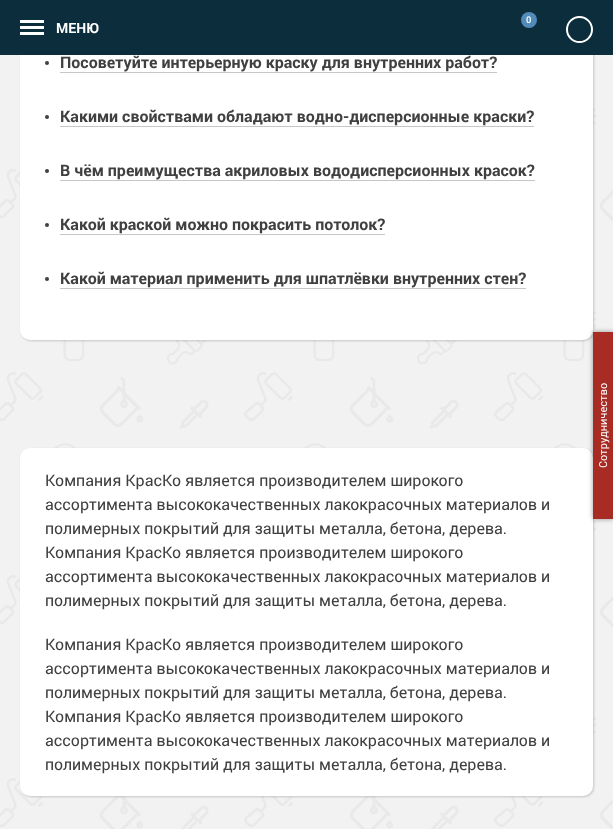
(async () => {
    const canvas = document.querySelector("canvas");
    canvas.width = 613;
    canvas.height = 829;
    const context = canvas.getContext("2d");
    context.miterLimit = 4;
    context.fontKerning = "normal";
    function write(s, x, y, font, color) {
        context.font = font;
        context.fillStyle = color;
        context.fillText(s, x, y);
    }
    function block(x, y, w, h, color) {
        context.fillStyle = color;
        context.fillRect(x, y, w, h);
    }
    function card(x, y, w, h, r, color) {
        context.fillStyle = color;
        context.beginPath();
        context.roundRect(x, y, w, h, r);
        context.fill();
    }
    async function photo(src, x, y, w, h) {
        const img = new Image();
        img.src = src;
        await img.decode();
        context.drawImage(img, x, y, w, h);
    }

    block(0, 0, 613, 829, "rgb(255, 255, 255)");
    await photo("media/1.png", 0, 55, 613, 774);
    context.fillStyle = "rgba(23, 26, 31, 0.2)";
    context.filter = "blur(1px)";
    context.beginPath();
    context.roundRect(21, 31, 573, 310, 10);
    context.fill();
    context.filter = "none";
    card(20, 30, 573, 310, 10, "rgb(255, 255, 255)");
    block(0, 0, 613, 55, "rgb(11, 45, 60)");
    block(20, 26, 24, 3, "rgb(255, 255, 255)");
    block(20, 20, 24, 3, "rgb(255, 255, 255)");
    block(20, 32, 24, 3, "rgb(255, 255, 255)");
    write("МЕНЮ", 56, 33, "bold 14px Roboto", "rgb(255, 255, 255)");
    context.fillStyle = "rgb(82, 139, 185)";
    context.beginPath();
    context.arc(529, 20, 8, 0, Math.PI * 2);
    context.fill();
    write("0", 526, 23, "bold 9px 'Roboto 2'", "rgb(255, 255, 255)");
    context.beginPath();
    context.arc(579.5, 29.5, 12.5, 0, Math.PI * 2);
    context.strokeStyle = "rgb(255, 255, 255)";
    context.lineWidth = 2;
    context.stroke();
    context.fillStyle = "rgb(64, 64, 64)";
    context.beginPath();
    context.arc(47, 63, 2, 0, Math.PI * 2);
    context.fill();
    write("Посоветуйте интерьерную краску для внутренних работ?", 60, 68, "bold 16px Roboto", "rgb(64, 64, 64)");
    block(60, 72, 437, 1, "rgb(198, 198, 198)");
    context.fillStyle = "rgb(64, 64, 64)";
    context.beginPath();
    context.arc(47, 117, 2, 0, Math.PI * 2);
    context.fill();
    write("Какими свойствами обладают водно-дисперсионные краски?", 60, 122, "bold 16px Roboto", "rgb(64, 64, 64)");
    block(60, 126, 474, 1, "rgb(198, 198, 198)");
    context.fillStyle = "rgb(64, 64, 64)";
    context.beginPath();
    context.arc(47, 171, 2, 0, Math.PI * 2);
    context.fill();
    write("В чём преимущества акриловых вододисперсионных красок?", 60, 176, "bold 16px Roboto", "rgb(64, 64, 64)");
    block(60, 180, 475, 1, "rgb(198, 198, 198)");
    context.fillStyle = "rgb(64, 64, 64)";
    context.beginPath();
    context.arc(47, 225, 2, 0, Math.PI * 2);
    context.fill();
    write("Какой краской можно покрасить потолок?", 60, 230, "bold 16px Roboto", "rgb(64, 64, 64)");
    block(60, 234, 325, 1, "rgb(198, 198, 198)");
    context.fillStyle = "rgb(64, 64, 64)";
    context.beginPath();
    context.arc(47, 279, 2, 0, Math.PI * 2);
    context.fill();
    write("Какой материал применить для шпатлёвки внутренних стен?", 60, 284, "bold 16px Roboto", "rgb(64, 64, 64)");
    block(60, 288, 466, 1, "rgb(198, 198, 198)");
    context.fillStyle = "rgba(23, 26, 31, 0.2)";
    context.filter = "blur(1px)";
    context.beginPath();
    context.roundRect(21, 449, 573, 348, 10);
    context.fill();
    context.filter = "none";
    card(20, 448, 573, 348, 10, "rgb(255, 255, 255)");
    write("Компания КрасКо является производителем широкого", 45, 486, "16px Roboto", "rgb(64, 64, 64)");
    write("ассортимента высококачественных лакокрасочных материалов и", 45, 510, "16px Roboto", "rgb(64, 64, 64)");
    write("полимерных покрытий для защиты металла, бетона, дерева.", 45, 534, "16px Roboto", "rgb(64, 64, 64)");
    write("Компания КрасКо является производителем широкого", 45, 558, "16px Roboto", "rgb(64, 64, 64)");
    write("ассортимента высококачественных лакокрасочных материалов и", 45, 582, "16px Roboto", "rgb(64, 64, 64)");
    write("полимерных покрытий для защиты металла, бетона, дерева.", 45, 606, "16px Roboto", "rgb(64, 64, 64)");
    write("Компания КрасКо является производителем широкого", 45, 650, "16px Roboto", "rgb(64, 64, 64)");
    write("ассортимента высококачественных лакокрасочных материалов и", 45, 674, "16px Roboto", "rgb(64, 64, 64)");
    write("полимерных покрытий для защиты металла, бетона, дерева.", 45, 698, "16px Roboto", "rgb(64, 64, 64)");
    write("Компания КрасКо является производителем широкого", 45, 722, "16px Roboto", "rgb(64, 64, 64)");
    write("ассортимента высококачественных лакокрасочных материалов и", 45, 746, "16px Roboto", "rgb(64, 64, 64)");
    write("полимерных покрытий для защиты металла, бетона, дерева.", 45, 770, "16px Roboto", "rgb(64, 64, 64)");
    context.fillStyle = "rgba(0, 0, 0, 0.4)";
    context.filter = "blur(2.5px)";
    context.beginPath();
    context.rect(593, 332, 20, 187);
    context.fill();
    context.filter = "none";
    block(593, 332, 20, 187, "rgb(168, 44, 36)");
    context.font = "11px Roboto";
    context.fillStyle = "rgb(255, 255, 255)";
    context.save();
    context.translate(607, 468);
    context.rotate(-90 * Math.PI / 180);
    context.fillText("Сотрудничество", 0, 0);
    context.restore();
})();
